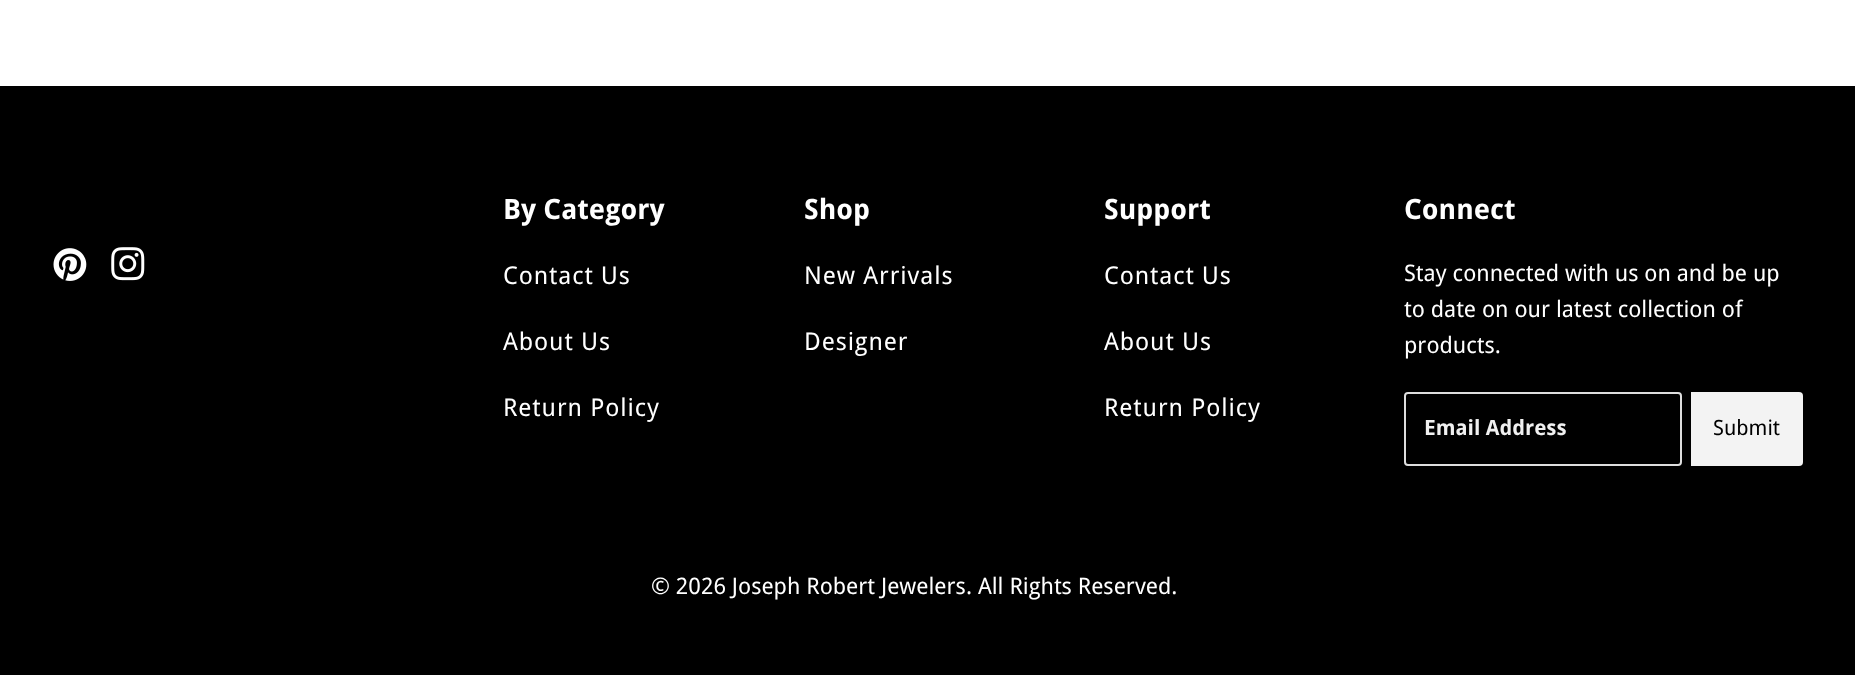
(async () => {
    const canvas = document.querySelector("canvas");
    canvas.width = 1855;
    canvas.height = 675;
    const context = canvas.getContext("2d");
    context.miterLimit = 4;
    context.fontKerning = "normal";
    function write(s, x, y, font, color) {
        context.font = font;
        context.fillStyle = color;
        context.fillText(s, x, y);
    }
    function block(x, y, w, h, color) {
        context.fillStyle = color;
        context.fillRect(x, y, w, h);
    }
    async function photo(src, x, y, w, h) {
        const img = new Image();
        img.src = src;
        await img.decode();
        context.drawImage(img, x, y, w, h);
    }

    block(0, 0, 1855, 675, "rgb(255, 255, 255)");
    block(0, 86, 1855, 589, "rgb(0, 0, 0)");
    await photo("media/1.png", 53, 248, 34, 33);
    await photo("media/2.png", 111, 247, 34, 34);
    write("By Category", 503, 219, "bold 28px Droid Sans", "rgb(255, 255, 255)");
    context.letterSpacing = "0.9px";
    write("Contact Us", 503, 284, "24.5px Droid Sans", "rgb(255, 255, 255)");
    write("About Us", 503, 350, "24.5px Droid Sans", "rgb(255, 255, 255)");
    write("Return Policy", 503, 416, "24.5px Droid Sans", "rgb(255, 255, 255)");
    context.letterSpacing = "0px";
    write("Shop", 804, 219, "bold 28px Droid Sans", "rgb(255, 255, 255)");
    context.letterSpacing = "0.9px";
    write("New Arrivals", 804, 284, "24.5px Droid Sans", "rgb(255, 255, 255)");
    write("Designer", 804, 350, "24.5px Droid Sans", "rgb(255, 255, 255)");
    context.letterSpacing = "0px";
    write("Support", 1104, 219, "bold 28px Droid Sans", "rgb(255, 255, 255)");
    context.letterSpacing = "0.9px";
    write("Contact Us", 1104, 284, "24.5px Droid Sans", "rgb(255, 255, 255)");
    write("About Us", 1104, 350, "24.5px Droid Sans", "rgb(255, 255, 255)");
    write("Return Policy", 1104, 416, "24.5px Droid Sans", "rgb(255, 255, 255)");
    context.letterSpacing = "0px";
    write("Connect", 1404, 219, "bold 28px Droid Sans", "rgb(255, 255, 255)");
    write("Stay connected with us on and be up", 1404, 281, "22.75px Droid Sans", "rgb(255, 255, 255)");
    write("to date on our latest collection of", 1404, 317, "22.75px Droid Sans", "rgb(255, 255, 255)");
    write("products.", 1404, 353, "22.75px Droid Sans", "rgb(255, 255, 255)");
    context.beginPath();
    context.roundRect(1405, 393, 276, 72, 3);
    context.strokeStyle = "rgb(222, 222, 222)";
    context.lineWidth = 2;
    context.stroke();
    write("Email Address", 1424, 435, "bold 21px Droid Sans", "rgb(240, 240, 240)");
    context.fillStyle = "rgb(243, 243, 243)";
    context.beginPath();
    context.roundRect(1691, 392, 112, 74, [0, 4, 4, 0]);
    context.fill();
    write("Submit", 1713, 435, "21px Droid Sans", "rgb(0, 0, 0)");
    write("© 2026 Joseph Robert Jewelers. All Rights Reserved.", 651, 594, "22.75px Droid Sans", "rgb(255, 255, 255)");
})();
